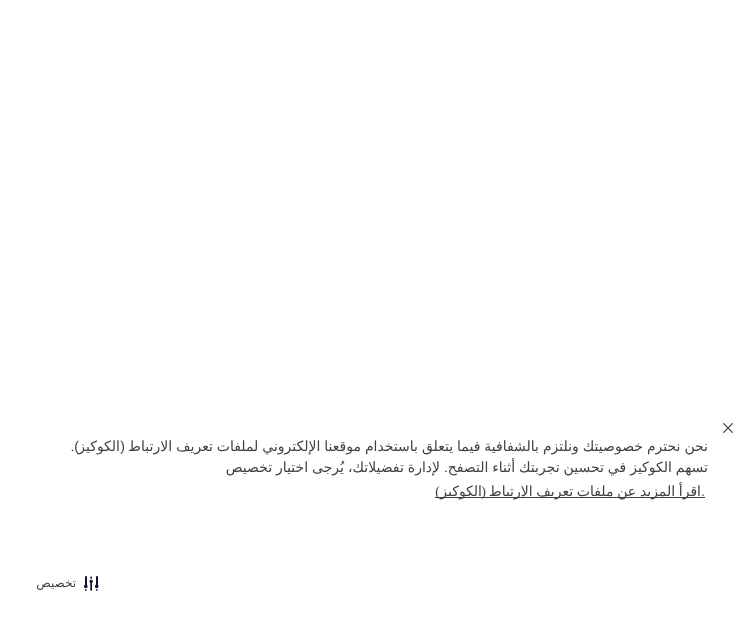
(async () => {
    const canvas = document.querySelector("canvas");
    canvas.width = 744;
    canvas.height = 631;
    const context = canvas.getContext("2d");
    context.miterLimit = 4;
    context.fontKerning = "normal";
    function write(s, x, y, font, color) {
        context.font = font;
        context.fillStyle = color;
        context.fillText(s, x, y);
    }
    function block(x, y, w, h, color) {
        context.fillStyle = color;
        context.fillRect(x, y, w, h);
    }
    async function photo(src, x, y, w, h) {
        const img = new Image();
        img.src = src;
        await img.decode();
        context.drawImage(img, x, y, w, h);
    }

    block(0, 0, 744, 631, "rgb(255, 255, 255)");
    context.wordSpacing = "-0.5px";
    context.direction = "rtl";
    write("نحن نحترم خصوصيتك ونلتزم بالشفافية فيما يتعلق باستخدام موقعنا الإلكتروني لملفات تعريف الارتباط", 708, 451, "14px DejaVu Sans", "rgb(64, 64, 64)");
    context.wordSpacing = "0px";
    write("(", 125, 451, "14px Liberation Sans", "rgb(64, 64, 64)");
    write(").", 79, 451, "14px Liberation Sans", "rgb(64, 64, 64)");
    write("الكوكيز", 120, 451, "14px DejaVu Sans", "rgb(64, 64, 64)");
    context.wordSpacing = "-0.5px";
    write("تسهم الكوكيز في تحسين تجربتك أثناء التصفح", 708, 472, "14px DejaVu Sans", "rgb(64, 64, 64)");
    context.wordSpacing = "0px";
    write(".", 448, 472, "14px Liberation Sans", "rgb(64, 64, 64)");
    context.wordSpacing = "-0.5px";
    write("لإدارة تفضيلاتك، يُرجى اختيار تخصيص", 440, 472, "14px DejaVu Sans", "rgb(64, 64, 64)");
    context.wordSpacing = "0px";
    context.direction = "ltr";
    write(".", 701, 496, "14px Liberation Sans", "rgb(64, 64, 64)");
    block(435, 497, 270, 1, "rgb(64, 64, 64)");
    context.wordSpacing = "-0.75px";
    context.direction = "rtl";
    write("اقرأ المزيد عن ملفات تعريف الارتباط", 701, 496, "14px DejaVu Sans", "rgb(64, 64, 64)");
    context.wordSpacing = "0px";
    write("(", 486, 496, "14px Liberation Serif", "rgb(64, 64, 64)");
    write(")", 440, 496, "14px Liberation Serif", "rgb(64, 64, 64)");
    write("الكوكيز", 482, 496, "14px DejaVu Sans", "rgb(64, 64, 64)");
    await photo("media/1.png", 723, 423, 10, 10);
    await photo("media/2.png", 84, 576, 15, 15);
    write("تخصيص", 76, 587, "12px DejaVu Sans", "rgb(64, 64, 64)");
})();
